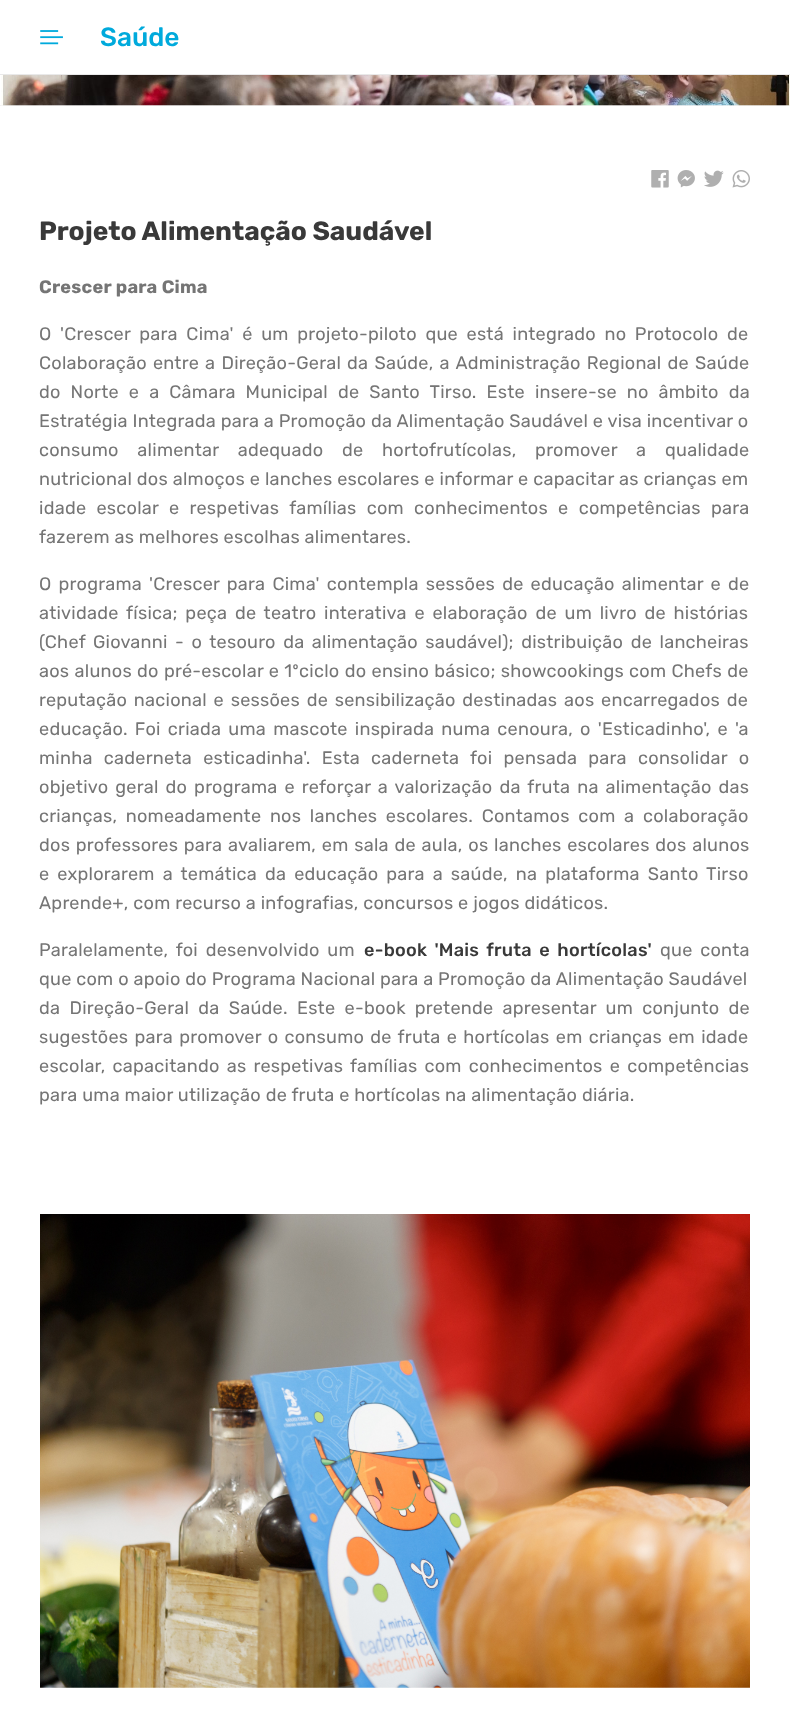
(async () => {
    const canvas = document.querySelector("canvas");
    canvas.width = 790;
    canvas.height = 1734;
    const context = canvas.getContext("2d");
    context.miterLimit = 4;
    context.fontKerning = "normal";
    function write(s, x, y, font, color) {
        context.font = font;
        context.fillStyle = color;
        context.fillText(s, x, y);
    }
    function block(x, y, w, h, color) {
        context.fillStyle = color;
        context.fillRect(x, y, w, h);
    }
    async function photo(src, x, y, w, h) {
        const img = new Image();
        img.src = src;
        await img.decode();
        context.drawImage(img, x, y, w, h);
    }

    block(0, 0, 790, 1734, "rgb(255, 255, 255)");
    await photo("media/1.png", 40, 30, 23, 15);
    block(0, 74, 790, 1, "rgb(233, 233, 233)");
    write("Saúde", 100, 46, "500 26.3px Rubik", "rgb(0, 170, 220)");
    block(0, 105, 790, 1, "rgb(243, 243, 243)");
    await photo("media/2.png", 1, 75, 789, 31);
    await photo("media/3.png", 651, 170, 18, 18);
    await photo("media/4.png", 677, 170, 18, 18);
    await photo("media/5.png", 704, 170, 20, 17);
    await photo("media/6.png", 732, 170, 18, 18);
    write("Projeto Alimentação Saudável", 39, 240, "bold 26.3px Rubik", "rgb(57, 57, 57)");
    context.letterSpacing = "0.25px";
    write("Crescer para Cima", 39, 293, "bold 18.1px Rubik", "rgb(117, 117, 117)");
    context.wordSpacing = "3.9px";
    write("O 'Crescer para Cima' é um projeto-piloto que está integrado no Protocolo de", 39, 340, "18.1px Rubik", "rgb(117, 117, 117)");
    context.wordSpacing = "1.4px";
    write("Colaboração entre a Direção-Geral da Saúde, a Administração Regional de Saúde", 39, 369, "18.1px Rubik", "rgb(117, 117, 117)");
    context.wordSpacing = "5.25px";
    write("do Norte e a Câmara Municipal de Santo Tirso. Este insere-se no âmbito da", 39, 398, "18.1px Rubik", "rgb(117, 117, 117)");
    context.wordSpacing = "0px";
    write("Estratégia Integrada para a Promoção da Alimentação Saudável e visa incentivar o", 39, 427, "18.1px Rubik", "rgb(117, 117, 117)");
    context.wordSpacing = "14px";
    write("consumo alimentar adequado de hortofrutícolas, promover a qualidade", 39, 456, "18.1px Rubik", "rgb(117, 117, 117)");
    context.wordSpacing = "0.1px";
    write("nutricional dos almoços e lanches escolares e informar e capacitar as crianças em", 39, 485, "18.1px Rubik", "rgb(117, 117, 117)");
    context.wordSpacing = "5.5px";
    write("idade escolar e respetivas famílias com conhecimentos e competências para", 39, 514, "18.1px Rubik", "rgb(117, 117, 117)");
    context.wordSpacing = "0px";
    write("fazerem as melhores escolhas alimentares.", 39, 543, "18.1px Rubik", "rgb(117, 117, 117)");
    context.wordSpacing = "2.4px";
    write("O programa 'Crescer para Cima' contempla sessões de educação alimentar e de", 39, 590, "18.1px Rubik", "rgb(117, 117, 117)");
    context.wordSpacing = "3px";
    write("atividade física; peça de teatro interativa e elaboração de um livro de histórias", 39, 619, "18.1px Rubik", "rgb(117, 117, 117)");
    context.wordSpacing = "2.75px";
    write("(Chef Giovanni - o tesouro da alimentação saudável); distribuição de lancheiras", 39, 648, "18.1px Rubik", "rgb(117, 117, 117)");
    context.wordSpacing = "0.5px";
    write("aos alunos do pré-escolar e 1ºciclo do ensino básico; showcookings com Chefs de", 39, 677, "18.1px Rubik", "rgb(117, 117, 117)");
    context.wordSpacing = "2px";
    write("reputação nacional e sessões de sensibilização destinadas aos encarregados de", 39, 706, "18.1px Rubik", "rgb(117, 117, 117)");
    context.wordSpacing = "2.4px";
    write("educação. Foi criada uma mascote inspirada numa cenoura, o 'Esticadinho', e 'a", 39, 735, "18.1px Rubik", "rgb(117, 117, 117)");
    context.wordSpacing = "6.5px";
    write("minha caderneta esticadinha'. Esta caderneta foi pensada para consolidar o", 39, 764, "18.1px Rubik", "rgb(117, 117, 117)");
    context.wordSpacing = "2.25px";
    write("objetivo geral do programa e reforçar a valorização da fruta na alimentação das", 39, 793, "18.1px Rubik", "rgb(117, 117, 117)");
    context.wordSpacing = "3.9px";
    write("crianças, nomeadamente nos lanches escolares. Contamos com a colaboração", 39, 822, "18.1px Rubik", "rgb(117, 117, 117)");
    context.wordSpacing = "1px";
    write("dos professores para avaliarem, em sala de aula, os lanches escolares dos alunos", 39, 851, "18.1px Rubik", "rgb(117, 117, 117)");
    context.wordSpacing = "3.25px";
    write("e explorarem a temática da educação para a saúde, na plataforma Santo Tirso", 39, 880, "18.1px Rubik", "rgb(117, 117, 117)");
    context.wordSpacing = "0px";
    write("Aprende+, com recurso a infografias, concursos e jogos didáticos.", 39, 909, "18.1px Rubik", "rgb(117, 117, 117)");
    context.wordSpacing = "3px";
    write("Paralelamente, foi desenvolvido um", 39, 956, "18.1px Rubik", "rgb(117, 117, 117)");
    write("e-book 'Mais fruta e hortícolas'", 364, 956, "500 18.1px Rubik", "rgb(57, 57, 57)");
    write("que conta", 660, 956, "18.1px Rubik", "rgb(117, 117, 117)");
    context.wordSpacing = "0px";
    write("que com o apoio do Programa Nacional para a Promoção da Alimentação Saudável", 39, 985, "18.1px Rubik", "rgb(117, 117, 117)");
    context.wordSpacing = "4.5px";
    write("da Direção-Geral da Saúde. Este e-book pretende apresentar um conjunto de", 39, 1014, "18.1px Rubik", "rgb(117, 117, 117)");
    context.wordSpacing = "1.5px";
    write("sugestões para promover o consumo de fruta e hortícolas em crianças em idade", 39, 1043, "18.1px Rubik", "rgb(117, 117, 117)");
    context.wordSpacing = "2.4px";
    write("escolar, capacitando as respetivas famílias com conhecimentos e competências", 39, 1072, "18.1px Rubik", "rgb(117, 117, 117)");
    context.wordSpacing = "0px";
    write("para uma maior utilização de fruta e hortícolas na alimentação diária.", 39, 1101, "18.1px Rubik", "rgb(117, 117, 117)");
    await photo("media/7.png", 40, 1214, 710, 474);
})();
